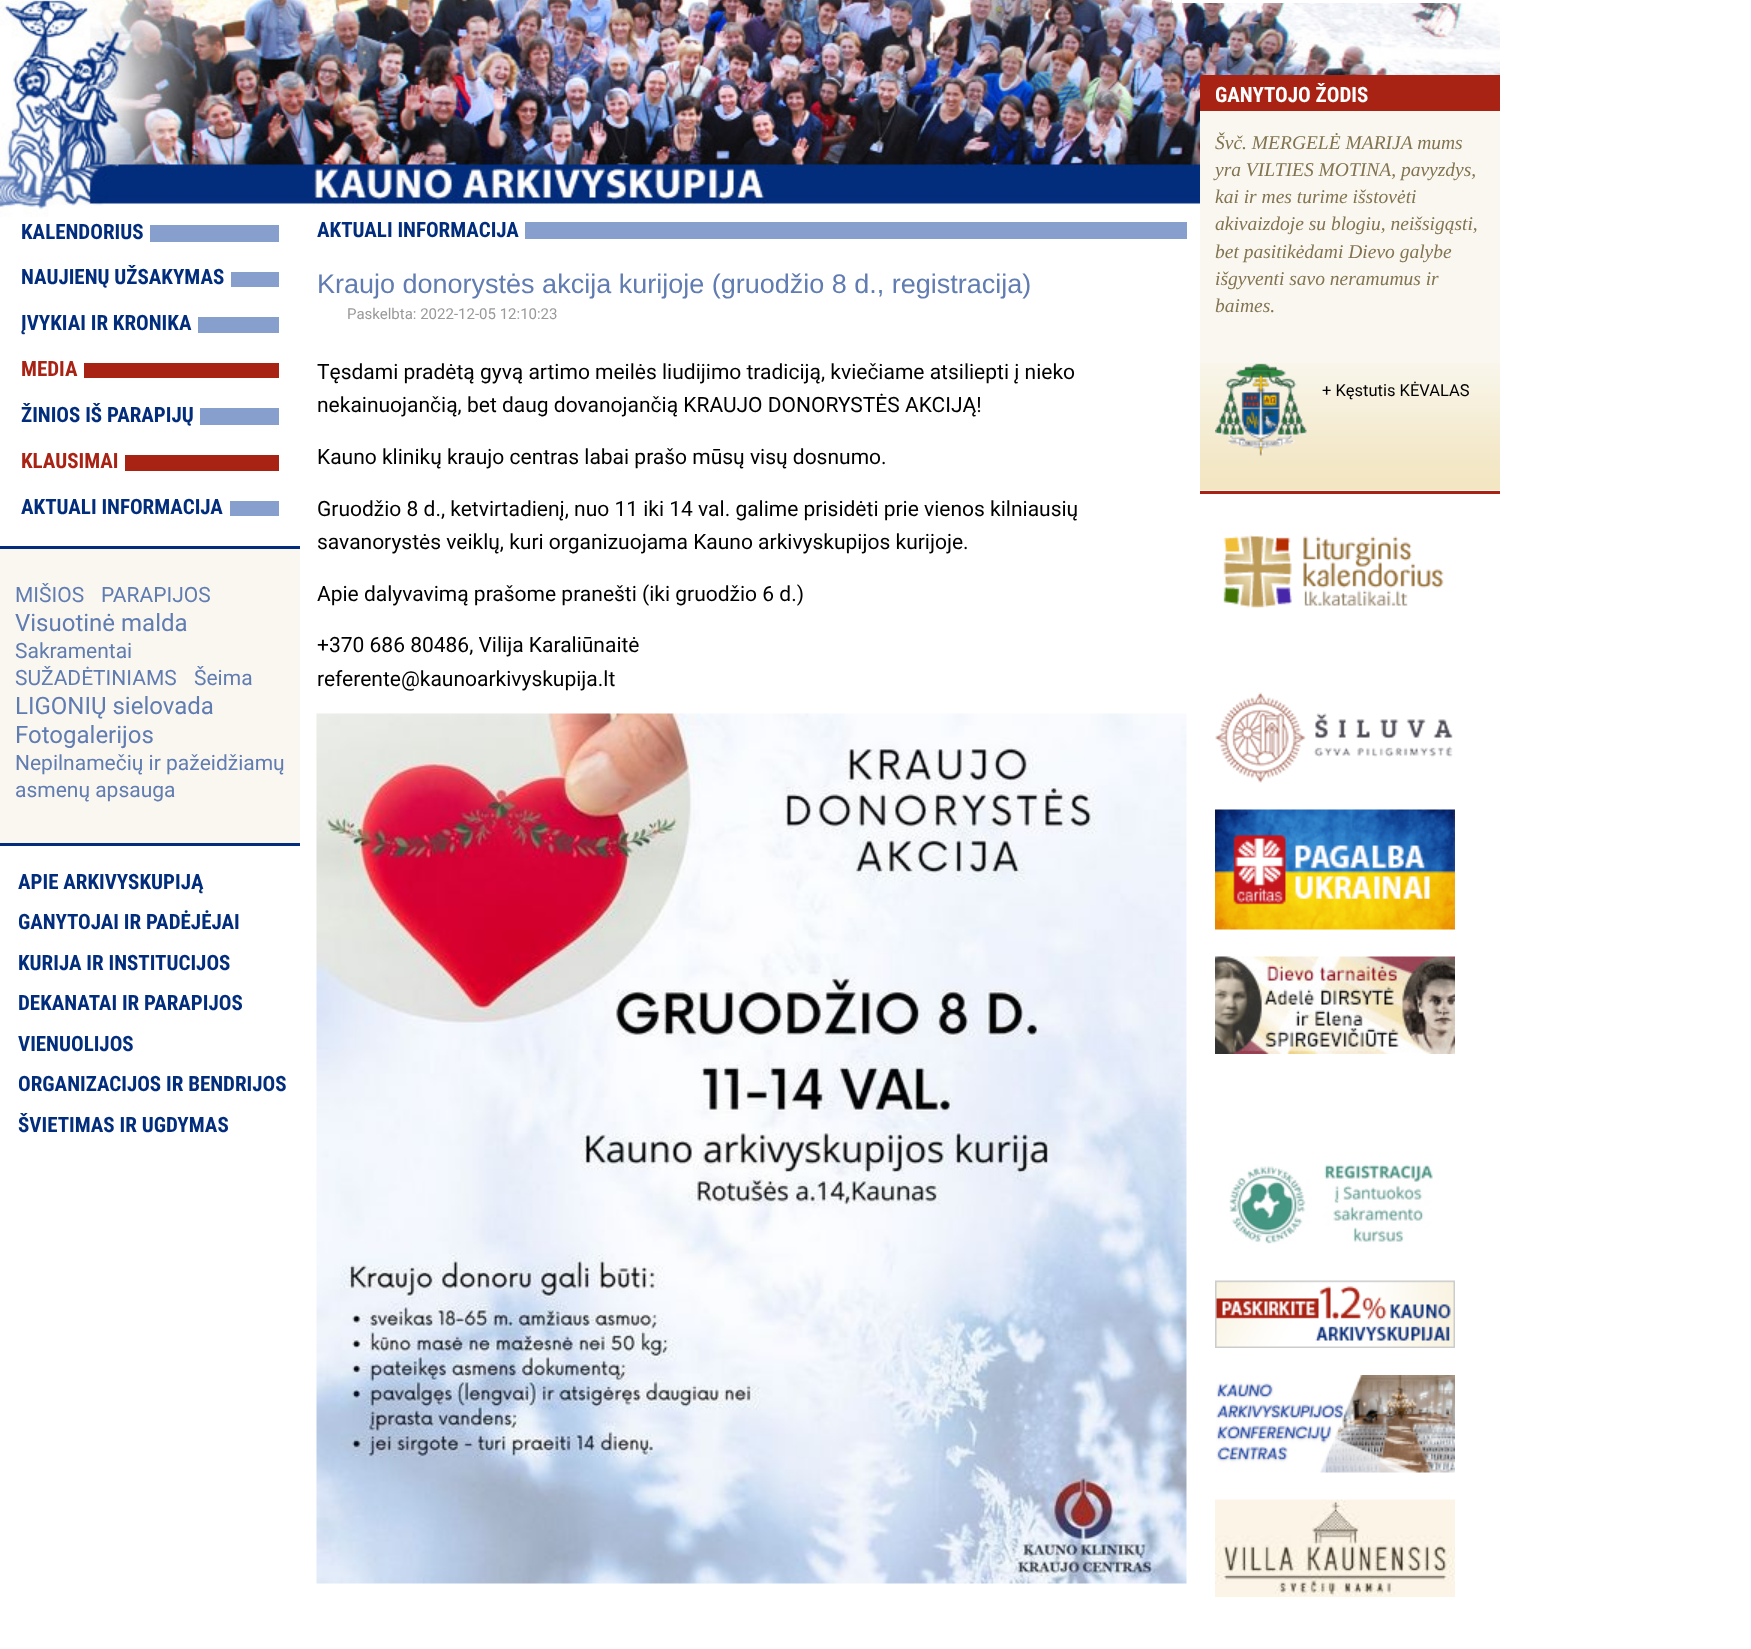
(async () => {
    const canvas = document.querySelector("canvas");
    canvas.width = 1751;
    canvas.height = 1649;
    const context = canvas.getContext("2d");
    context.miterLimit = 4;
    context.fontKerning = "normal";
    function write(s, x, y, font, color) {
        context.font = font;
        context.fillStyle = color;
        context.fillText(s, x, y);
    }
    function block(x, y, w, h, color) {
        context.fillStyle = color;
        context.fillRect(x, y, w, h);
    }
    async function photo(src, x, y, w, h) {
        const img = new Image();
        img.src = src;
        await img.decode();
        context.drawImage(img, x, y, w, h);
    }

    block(0, 0, 1751, 1649, "rgb(255, 255, 255)");
    await photo("media/1.png", 0, 0, 1500, 217);
    await photo("media/2.png", 1160, 0, 12, 3);
    block(1172, 0, 304, 3, "rgb(255, 255, 255)");
    block(150, 225, 129, 17, "rgb(134, 159, 204)");
    write("KALENDORIUS", 21, 239, "bold 21px Roboto Condensed", "rgb(2, 45, 124)");
    block(231, 272, 48, 15, "rgb(134, 159, 204)");
    write("NAUJIENŲ UŽSAKYMAS", 21, 284, "bold 21px Roboto Condensed", "rgb(2, 45, 124)");
    block(198, 317, 81, 16, "rgb(134, 159, 204)");
    write("ĮVYKIAI IR KRONIKA", 21, 330, "bold 21px Roboto Condensed", "rgb(2, 45, 124)");
    block(84, 363, 195, 15, "rgb(169, 35, 21)");
    write("MEDIA", 21, 376, "bold 21px Roboto Condensed", "rgb(169, 35, 21)");
    block(200, 408, 79, 17, "rgb(134, 159, 204)");
    write("ŽINIOS IŠ PARAPIJŲ", 21, 422, "bold 21px Roboto Condensed", "rgb(2, 45, 124)");
    block(125, 455, 154, 16, "rgb(169, 35, 21)");
    write("KLAUSIMAI", 21, 468, "bold 21px Roboto Condensed", "rgb(169, 35, 21)");
    block(230, 501, 49, 15, "rgb(134, 159, 204)");
    write("AKTUALI INFORMACIJA", 21, 514, "bold 21px Roboto Condensed", "rgb(2, 45, 124)");
    block(0, 549, 300, 294, "rgb(249, 247, 239)");
    block(0, 546, 300, 3, "rgb(2, 45, 124)");
    block(0, 843, 300, 3, "rgb(2, 45, 124)");
    write("MIŠIOS", 15, 602, "21px Roboto", "rgb(96, 124, 177)");
    write("PARAPIJOS", 101, 602, "21px Roboto", "rgb(96, 124, 177)");
    write("Visuotinė malda", 15, 631, "24px Roboto", "rgb(96, 124, 177)");
    write("Sakramentai", 15, 658, "21px Roboto", "rgb(96, 124, 177)");
    write("SUŽADĖTINIAMS", 15, 685, "21px Roboto", "rgb(96, 124, 177)");
    write("Šeima", 194, 685, "21px Roboto", "rgb(96, 124, 177)");
    write("LIGONIŲ sielovada", 15, 714, "24px Roboto", "rgb(96, 124, 177)");
    write("Fotogalerijos", 15, 743, "24px Roboto", "rgb(96, 124, 177)");
    write("Nepilnamečių ir pažeidžiamų", 15, 770, "21px Roboto", "rgb(96, 124, 177)");
    write("asmenų apsauga", 15, 797, "21px Roboto", "rgb(96, 124, 177)");
    write("APIE ARKIVYSKUPIJĄ", 18, 889, "bold 21px Roboto Condensed", "rgb(2, 45, 124)");
    write("GANYTOJAI IR PADĖJĖJAI", 18, 929, "bold 21px Roboto Condensed", "rgb(2, 45, 124)");
    write("KURIJA IR INSTITUCIJOS", 18, 970, "bold 21px Roboto Condensed", "rgb(2, 45, 124)");
    write("DEKANATAI IR PARAPIJOS", 18, 1010, "bold 21px Roboto Condensed", "rgb(2, 45, 124)");
    write("VIENUOLIJOS", 18, 1051, "bold 21px Roboto Condensed", "rgb(2, 45, 124)");
    write("ORGANIZACIJOS IR BENDRIJOS", 18, 1091, "bold 21px Roboto Condensed", "rgb(2, 45, 124)");
    write("ŠVIETIMAS IR UGDYMAS", 18, 1132, "bold 21px Roboto Condensed", "rgb(2, 45, 124)");
    block(525, 222, 662, 17, "rgb(134, 159, 204)");
    write("AKTUALI INFORMACIJA", 317, 237, "bold 21px Roboto Condensed", "rgb(2, 45, 124)");
    write("Kraujo donorystės akcija kurijoje (gruodžio 8 d., registracija)", 317, 293, "27px Liberation Sans", "rgb(96, 124, 177)");
    write("Paskelbta: 2022-12-05 12:10:23", 347, 319, "15px Roboto", "rgb(153, 153, 153)");
    write("Tęsdami pradėtą gyvą artimo meilės liudijimo tradiciją, kviečiame atsiliepti į nieko", 317, 379, "21px Roboto", "rgb(0, 0, 0)");
    write("nekainuojančią, bet daug dovanojančią KRAUJO DONORYSTĖS AKCIJĄ!", 317, 412, "21px Roboto", "rgb(0, 0, 0)");
    write("Kauno klinikų kraujo centras labai prašo mūsų visų dosnumo.", 317, 464, "21px Roboto", "rgb(0, 0, 0)");
    write("Gruodžio 8 d., ketvirtadienį, nuo 11 iki 14 val. galime prisidėti prie vienos kilniausių", 317, 516, "21px Roboto", "rgb(0, 0, 0)");
    write("savanorystės veiklų, kuri organizuojama Kauno arkivyskupijos kurijoje.", 317, 549, "21px Roboto", "rgb(0, 0, 0)");
    write("Apie dalyvavimą prašome pranešti (iki gruodžio 6 d.)", 317, 601, "21px Roboto", "rgb(0, 0, 0)");
    write("+370 686 80486, Vilija Karaliūnaitė", 317, 652, "21px Roboto", "rgb(0, 0, 0)");
    write("referente@kaunoarkivyskupija.lt", 317, 686, "21px Roboto", "rgb(0, 0, 0)");
    await photo("media/3.png", 316, 713, 871, 871);
    block(1200, 111, 300, 380, "rgb(249, 247, 239)");
    await photo("media/4.png", 1200, 363, 300, 127);
    block(1200, 491, 300, 3, "rgb(169, 35, 21)");
    block(1200, 75, 300, 36, "rgb(169, 35, 21)");
    write("GANYTOJO ŽODIS", 1215, 102, "bold 21px Roboto Condensed", "rgb(255, 255, 255)");
    write("Švč. MERGELĖ MARIJA mums", 1215, 149, "italic 19.5px Liberation Serif", "rgb(130, 116, 82)");
    write("yra VILTIES MOTINA, pavyzdys,", 1215, 176, "italic 19.5px Liberation Serif", "rgb(130, 116, 82)");
    write("kai ir mes turime išstovėti", 1215, 203, "italic 19.5px Liberation Serif", "rgb(130, 116, 82)");
    write("akivaizdoje su blogiu, neišsigąsti,", 1215, 230, "italic 19.5px Liberation Serif", "rgb(130, 116, 82)");
    write("bet pasitikėdami Dievo galybe", 1215, 258, "italic 19.5px Liberation Serif", "rgb(130, 116, 82)");
    write("išgyventi savo neramumus ir", 1215, 285, "italic 19.5px Liberation Serif", "rgb(130, 116, 82)");
    write("baimes.", 1215, 312, "italic 19.5px Liberation Serif", "rgb(130, 116, 82)");
    await photo("media/5.png", 1215, 363, 92, 93);
    write("+ Kęstutis KĖVALAS", 1322, 396, "16.5px Roboto", "rgb(0, 0, 0)");
    await photo("media/6.png", 1223, 535, 221, 73);
    await photo("media/7.png", 1215, 692, 238, 91);
    await photo("media/8.png", 1215, 809, 240, 121);
    await photo("media/9.png", 1215, 956, 240, 98);
    await photo("media/10.png", 1229, 1164, 204, 80);
    await photo("media/11.png", 1215, 1280, 240, 68);
    await photo("media/12.png", 1216, 1375, 239, 98);
    await photo("media/13.png", 1215, 1499, 240, 98);
})();
